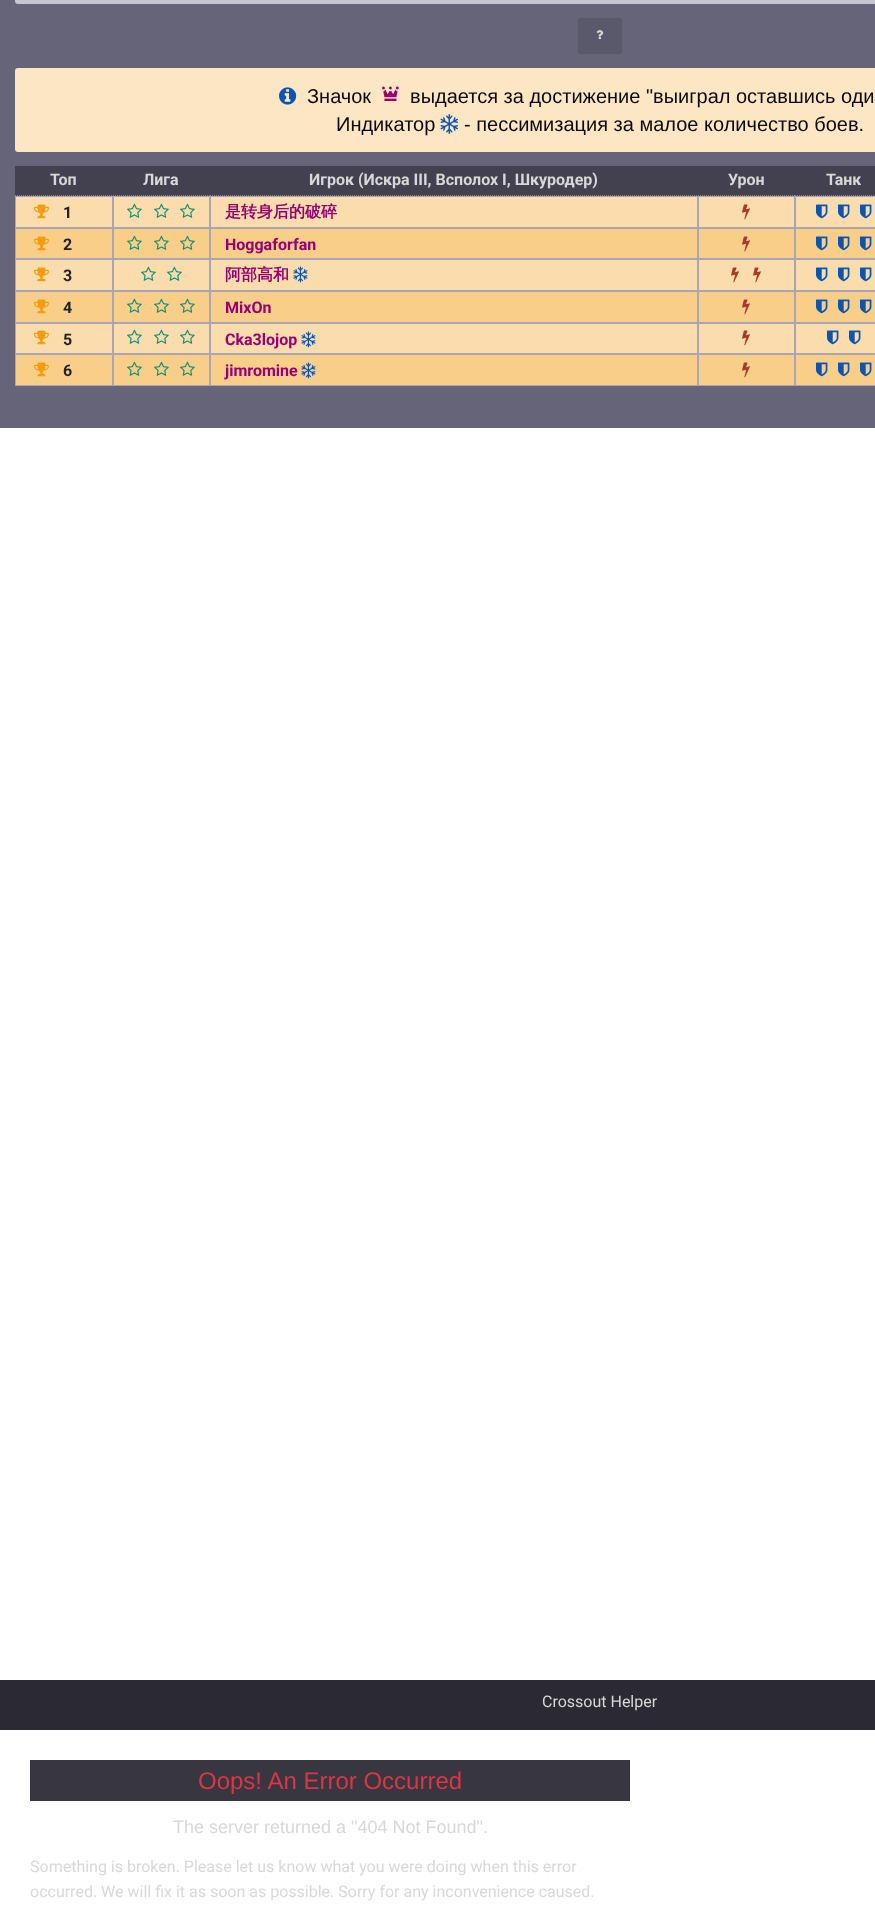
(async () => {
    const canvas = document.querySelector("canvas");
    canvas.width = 875;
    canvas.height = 1925;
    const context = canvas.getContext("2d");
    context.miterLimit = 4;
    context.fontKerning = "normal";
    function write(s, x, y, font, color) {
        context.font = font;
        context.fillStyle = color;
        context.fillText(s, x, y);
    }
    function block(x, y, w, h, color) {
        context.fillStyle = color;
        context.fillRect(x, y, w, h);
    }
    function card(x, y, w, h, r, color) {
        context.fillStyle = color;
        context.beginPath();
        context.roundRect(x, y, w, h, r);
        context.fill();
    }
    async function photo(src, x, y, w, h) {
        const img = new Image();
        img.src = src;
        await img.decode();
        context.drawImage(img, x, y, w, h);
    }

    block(0, 0, 875, 1925, "rgb(255, 255, 255)");
    block(0, 0, 875, 428, "rgb(102, 100, 121)");
    card(15, -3, 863, 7, 3, "rgb(199, 198, 208)");
    card(578, 18, 44, 36, 3, "rgb(90, 88, 107)");
    await photo("media/1.png", 596, 30, 8, 10);
    card(15, 68, 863, 84, 3, "rgb(252, 230, 196)");
    await photo("media/2.png", 279, 87, 18, 18);
    write("Значок", 307, 103, "20px Liberation Sans", "rgb(10, 10, 10)");
    await photo("media/3.png", 382, 86, 17, 15);
    write("выдается за достижение \"выиграл оставшись оди", 410, 103, "20px Liberation Sans", "rgb(10, 10, 10)");
    write("Индикатор", 336, 131, "20px Liberation Sans", "rgb(10, 10, 10)");
    await photo("media/4.png", 440, 114, 18, 20);
    write("- пессимизация за малое количество боев.", 464, 131, "20px Liberation Sans", "rgb(10, 10, 10)");
    block(15, 166, 860, 30, "rgb(67, 65, 79)");
    context.beginPath();
    context.moveTo(15, 195.5);
    context.lineTo(113, 195.5);
    context.strokeStyle = "rgb(138, 138, 138)";
    context.setLineDash([1, 1]);
    context.stroke();
    write("Топ", 50, 185, "bold 16px Roboto", "rgb(216, 216, 216)");
    context.beginPath();
    context.moveTo(113, 195.5);
    context.lineTo(210, 195.5);
    context.stroke();
    write("Лига", 143, 185, "bold 16px Roboto", "rgb(216, 216, 216)");
    context.beginPath();
    context.moveTo(210, 195.5);
    context.lineTo(698, 195.5);
    context.stroke();
    write("Игрок (Искра III, Всполох I, Шкуродер)", 309, 185, "bold 16px Roboto", "rgb(216, 216, 216)");
    context.beginPath();
    context.moveTo(698, 195.5);
    context.lineTo(795, 195.5);
    context.stroke();
    write("Урон", 728, 185, "bold 16px Roboto", "rgb(216, 216, 216)");
    context.beginPath();
    context.moveTo(795, 195.5);
    context.lineTo(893, 195.5);
    context.stroke();
    write("Танк", 826, 185, "bold 16px Roboto", "rgb(216, 216, 216)");
    block(16, 197, 859, 30, "rgb(251, 220, 172)");
    context.strokeStyle = "rgb(168, 166, 182)";
    context.setLineDash([]);
    context.strokeRect(15.5, 196.5, 97, 31);
    await photo("media/5.png", 34, 204, 15, 15);
    write("1", 63, 218, "bold 16px Roboto", "rgb(34, 34, 34)");
    context.strokeRect(113.5, 196.5, 96, 31);
    await photo("media/6.png", 127, 203, 15, 15);
    await photo("media/6.png", 154, 203, 15, 15);
    await photo("media/6.png", 180, 203, 15, 15);
    context.strokeRect(210.5, 196.5, 487, 31);
    write("是转身后的破碎", 225, 217, "bold 16px WenQuanYi Zen Hei", "rgb(153, 0, 115)");
    context.strokeRect(698.5, 196.5, 96, 31);
    await photo("media/7.png", 742, 204, 8, 16);
    context.strokeRect(795.5, 196.5, 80, 31);
    await photo("media/8.png", 816, 204, 12, 15);
    await photo("media/8.png", 838, 204, 12, 15);
    await photo("media/8.png", 860, 204, 12, 15);
    block(16, 229, 859, 29, "rgb(249, 206, 137)");
    context.strokeRect(15.5, 228.5, 97, 30);
    await photo("media/9.png", 34, 236, 15, 15);
    write("2", 63, 250, "bold 16px Roboto", "rgb(34, 34, 34)");
    context.strokeRect(113.5, 228.5, 96, 30);
    await photo("media/10.png", 127, 235, 15, 15);
    await photo("media/10.png", 154, 235, 15, 15);
    await photo("media/10.png", 180, 235, 15, 15);
    context.strokeRect(210.5, 228.5, 487, 30);
    write("Hoggaforfan", 225, 250, "bold 16px Roboto", "rgb(153, 0, 115)");
    context.strokeRect(698.5, 228.5, 96, 30);
    await photo("media/11.png", 742, 236, 8, 16);
    context.strokeRect(795.5, 228.5, 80, 30);
    await photo("media/12.png", 816, 236, 12, 15);
    await photo("media/12.png", 838, 236, 12, 15);
    await photo("media/12.png", 860, 236, 12, 15);
    block(16, 260, 859, 30, "rgb(251, 220, 172)");
    context.strokeRect(15.5, 259.5, 97, 31);
    await photo("media/5.png", 34, 267, 15, 15);
    write("3", 63, 281, "bold 16px Roboto", "rgb(34, 34, 34)");
    context.strokeRect(113.5, 259.5, 96, 31);
    await photo("media/6.png", 141, 266, 15, 15);
    await photo("media/6.png", 167, 266, 15, 15);
    context.strokeRect(210.5, 259.5, 487, 31);
    write("阿部高和", 225, 280, "bold 16px WenQuanYi Zen Hei", "rgb(153, 0, 115)");
    await photo("media/13.png", 293, 266, 15, 17);
    context.strokeRect(698.5, 259.5, 96, 31);
    await photo("media/7.png", 731, 267, 8, 16);
    await photo("media/7.png", 753, 267, 8, 16);
    context.strokeRect(795.5, 259.5, 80, 31);
    await photo("media/8.png", 816, 267, 12, 15);
    await photo("media/8.png", 838, 267, 12, 15);
    await photo("media/8.png", 860, 267, 12, 15);
    block(16, 292, 859, 30, "rgb(249, 206, 137)");
    context.strokeRect(15.5, 291.5, 97, 31);
    await photo("media/9.png", 34, 299, 15, 15);
    write("4", 63, 313, "bold 16px Roboto", "rgb(34, 34, 34)");
    context.strokeRect(113.5, 291.5, 96, 31);
    await photo("media/10.png", 127, 298, 15, 15);
    await photo("media/10.png", 154, 298, 15, 15);
    await photo("media/10.png", 180, 298, 15, 15);
    context.strokeRect(210.5, 291.5, 487, 31);
    write("MixOn", 225, 313, "bold 16px Roboto", "rgb(153, 0, 115)");
    context.strokeRect(698.5, 291.5, 96, 31);
    await photo("media/11.png", 742, 299, 8, 16);
    context.strokeRect(795.5, 291.5, 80, 31);
    await photo("media/12.png", 816, 299, 12, 15);
    await photo("media/12.png", 838, 299, 12, 15);
    await photo("media/12.png", 860, 299, 12, 15);
    block(16, 324, 859, 29, "rgb(251, 220, 172)");
    context.strokeRect(15.5, 323.5, 97, 30);
    await photo("media/5.png", 34, 330, 15, 15);
    write("5", 63, 345, "bold 16px Roboto", "rgb(34, 34, 34)");
    context.strokeRect(113.5, 323.5, 96, 30);
    await photo("media/6.png", 127, 329, 15, 15);
    await photo("media/6.png", 154, 329, 15, 15);
    await photo("media/6.png", 180, 329, 15, 15);
    context.strokeRect(210.5, 323.5, 487, 30);
    write("Cka3lojop", 225, 345, "bold 16px Roboto", "rgb(153, 0, 115)");
    await photo("media/13.png", 301, 331, 15, 17);
    context.strokeRect(698.5, 323.5, 96, 30);
    await photo("media/7.png", 742, 330, 8, 16);
    context.strokeRect(795.5, 323.5, 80, 30);
    await photo("media/8.png", 827, 330, 12, 15);
    await photo("media/8.png", 849, 330, 12, 15);
    block(16, 355, 859, 30, "rgb(249, 206, 137)");
    context.strokeRect(15.5, 354.5, 97, 31);
    await photo("media/9.png", 34, 362, 15, 15);
    write("6", 63, 376, "bold 16px Roboto", "rgb(34, 34, 34)");
    context.strokeRect(113.5, 354.5, 96, 31);
    await photo("media/10.png", 127, 361, 15, 15);
    await photo("media/10.png", 154, 361, 15, 15);
    await photo("media/10.png", 180, 361, 15, 15);
    context.strokeRect(210.5, 354.5, 487, 31);
    write("jimromine", 225, 376, "bold 16px Roboto", "rgb(153, 0, 115)");
    await photo("media/14.png", 301, 362, 15, 17);
    context.strokeRect(698.5, 354.5, 96, 31);
    await photo("media/11.png", 742, 362, 8, 16);
    context.strokeRect(795.5, 354.5, 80, 31);
    await photo("media/12.png", 816, 362, 12, 15);
    await photo("media/12.png", 838, 362, 12, 15);
    await photo("media/12.png", 860, 362, 12, 15);
    block(0, 1680, 875, 50, "rgb(43, 42, 51)");
    write("Crossout Helper", 542, 1707, "16px Roboto", "rgb(216, 216, 216)");
    block(30, 1760, 600, 41, "rgb(55, 54, 65)");
    write("Oops! An Error Occurred", 198, 1789, "24px Liberation Sans", "rgb(220, 53, 69)");
    write("The server returned a \"404 Not Found\".", 173, 1833, "18px Liberation Sans", "rgb(216, 216, 216)");
    write("Something is broken. Please let us know what you were doing when this error", 30, 1872, "16px Roboto", "rgb(216, 216, 216)");
    write("occurred. We will fix it as soon as possible. Sorry for any inconvenience caused.", 30, 1897, "16px Roboto", "rgb(216, 216, 216)");
})();
